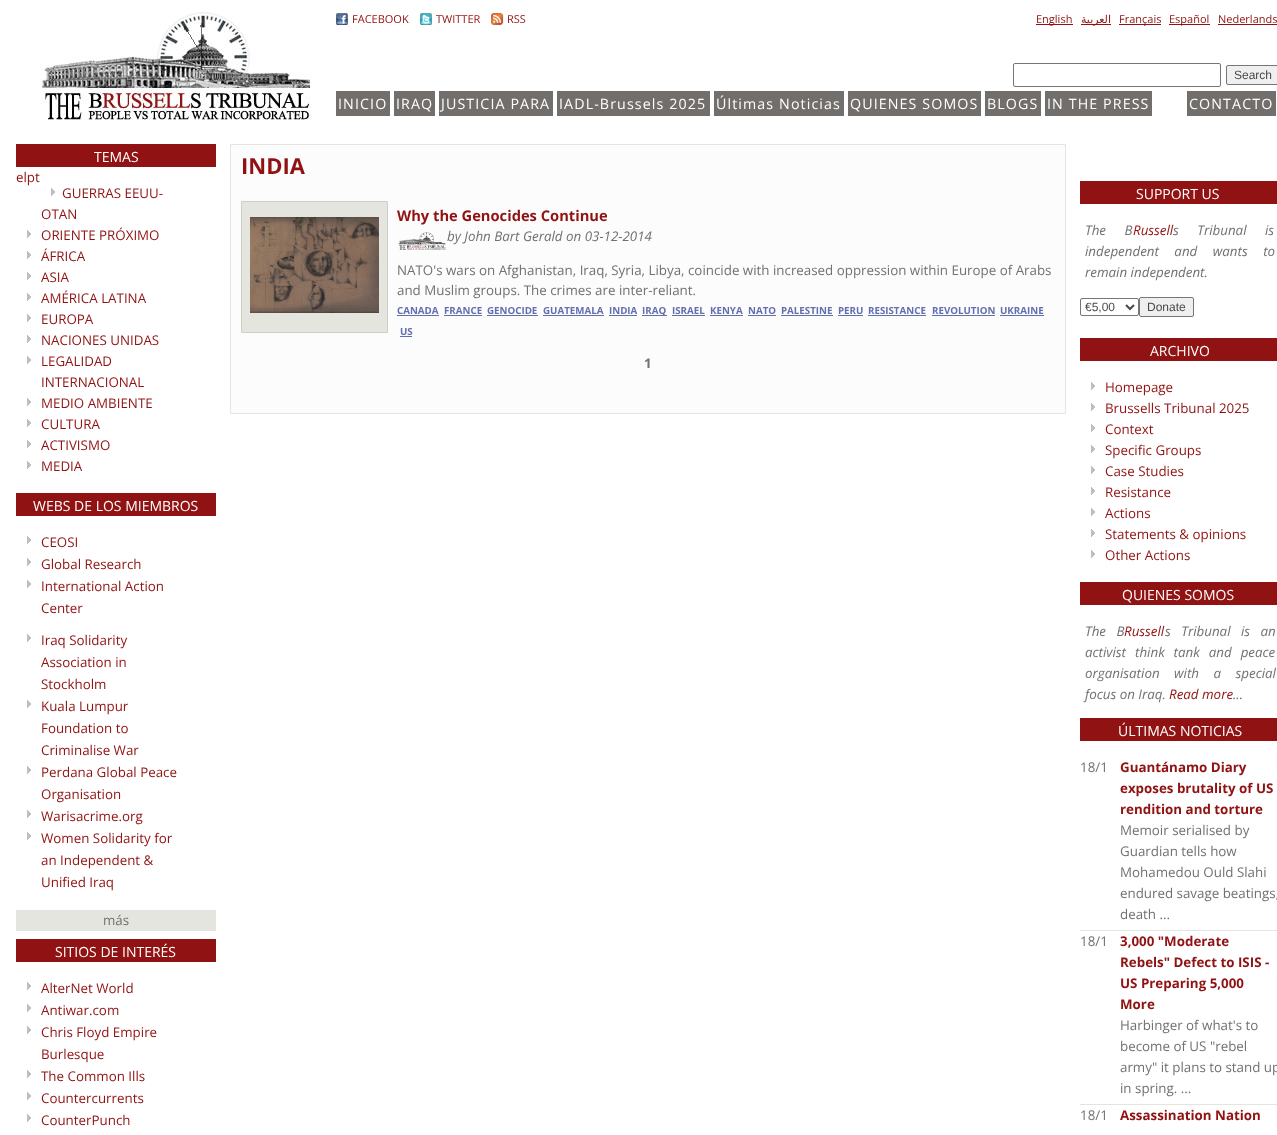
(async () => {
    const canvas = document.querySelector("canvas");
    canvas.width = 1277;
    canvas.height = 1135;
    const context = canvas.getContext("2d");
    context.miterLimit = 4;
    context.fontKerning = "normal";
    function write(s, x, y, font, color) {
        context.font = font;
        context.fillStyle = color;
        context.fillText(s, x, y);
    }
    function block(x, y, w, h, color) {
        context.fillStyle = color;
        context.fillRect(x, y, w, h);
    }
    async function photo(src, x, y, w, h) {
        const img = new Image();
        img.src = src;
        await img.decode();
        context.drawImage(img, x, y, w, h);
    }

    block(0, 0, 1277, 1135, "rgb(255, 255, 255)");
    await photo("media/1.png", 40, 12, 272, 108);
    await photo("media/2.png", 336, 13, 12, 12);
    write("FACEBOOK", 352, 23, "11px Open Sans", "rgb(144, 18, 18)");
    await photo("media/3.png", 420, 13, 12, 12);
    write("TWITTER", 436, 23, "11px Open Sans", "rgb(144, 18, 18)");
    await photo("media/4.png", 491, 13, 13, 12);
    write("RSS", 507, 23, "11px Open Sans", "rgb(144, 18, 18)");
    block(1036, 24, 37, 1, "rgb(144, 18, 18)");
    write("English", 1036, 23, "11px Open Sans", "rgb(144, 18, 18)");
    block(1081, 24, 30, 1, "rgb(144, 18, 18)");
    context.direction = "rtl";
    write("العربية", 1111, 23, "11px DejaVu Sans", "rgb(144, 18, 18)");
    block(1119, 24, 42, 1, "rgb(144, 18, 18)");
    context.direction = "ltr";
    write("Français", 1119, 23, "11px Open Sans", "rgb(144, 18, 18)");
    block(1169, 24, 41, 1, "rgb(144, 18, 18)");
    write("Español", 1169, 23, "11px Open Sans", "rgb(144, 18, 18)");
    write("Nederlands", 1218, 23, "11px Open Sans", "rgb(144, 18, 18)");
    block(1218, 24, 59, 1, "rgb(144, 18, 18)");
    context.beginPath();
    context.roundRect(1013.5, 63.5, 207, 23, 1.5);
    context.strokeStyle = "rgb(118, 118, 118)";
    context.stroke();
    context.fillStyle = "rgb(239, 239, 239)";
    context.beginPath();
    context.roundRect(1226.5, 65.5, 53, 19, 1.5);
    context.fill();
    context.stroke();
    write("Search", 1234, 79, "12px Liberation Sans", "rgb(73, 73, 73)");
    block(336, 91, 54, 25, "rgb(114, 110, 107)");
    context.letterSpacing = "1.1px";
    write("INICIO", 338, 109, "14.25px Open Sans", "rgb(255, 255, 255)");
    block(394, 91, 41, 25, "rgb(114, 110, 107)");
    write("IRAQ", 396, 109, "14.25px Open Sans", "rgb(255, 255, 255)");
    block(439, 91, 114, 25, "rgb(114, 110, 107)");
    write("JUSTICIA PARA", 441, 109, "14.25px Open Sans", "rgb(255, 255, 255)");
    block(557, 91, 153, 25, "rgb(114, 110, 107)");
    write("IADL-Brussels 2025", 559, 109, "14.25px Open Sans", "rgb(255, 255, 255)");
    block(714, 91, 130, 25, "rgb(114, 110, 107)");
    write("Últimas Noticias", 716, 109, "14.25px Open Sans", "rgb(255, 255, 255)");
    block(848, 91, 133, 25, "rgb(114, 110, 107)");
    write("QUIENES SOMOS", 850, 109, "14.25px Open Sans", "rgb(255, 255, 255)");
    block(985, 91, 56, 25, "rgb(114, 110, 107)");
    write("BLOGS", 987, 109, "14.25px Open Sans", "rgb(255, 255, 255)");
    block(1045, 91, 107, 25, "rgb(114, 110, 107)");
    write("IN THE PRESS", 1047, 109, "14.25px Open Sans", "rgb(255, 255, 255)");
    block(1187, 91, 89, 25, "rgb(114, 110, 107)");
    write("CONTACTO", 1189, 109, "14.25px Open Sans", "rgb(255, 255, 255)");
    block(16, 144, 200, 23, "rgb(144, 18, 18)");
    context.letterSpacing = "0px";
    write("TEMAS", 94, 162, "14px Open Sans", "rgb(255, 255, 255)");
    write("elpt", 16, 182, "13.35px Open Sans", "rgb(144, 18, 18)");
    write("GUERRAS EEUU-", 62, 198, "13.35px Open Sans", "rgb(144, 18, 18)");
    write("OTAN", 41, 219, "13.35px Open Sans", "rgb(144, 18, 18)");
    await photo("media/5.png", 51, 188, 4, 8);
    await photo("media/5.png", 27, 230, 4, 8);
    write("ORIENTE PRÓXIMO", 41, 240, "13.35px Open Sans", "rgb(144, 18, 18)");
    await photo("media/5.png", 27, 251, 4, 8);
    write("ÁFRICA", 41, 261, "13.35px Open Sans", "rgb(144, 18, 18)");
    await photo("media/5.png", 27, 272, 4, 8);
    write("ASIA", 41, 282, "13.35px Open Sans", "rgb(144, 18, 18)");
    await photo("media/5.png", 27, 293, 4, 8);
    write("AMÉRICA LATINA", 41, 303, "13.35px Open Sans", "rgb(144, 18, 18)");
    await photo("media/5.png", 27, 314, 4, 8);
    write("EUROPA", 41, 324, "13.35px Open Sans", "rgb(144, 18, 18)");
    await photo("media/5.png", 27, 335, 4, 8);
    write("NACIONES UNIDAS", 41, 345, "13.35px Open Sans", "rgb(144, 18, 18)");
    await photo("media/5.png", 27, 356, 4, 8);
    write("LEGALIDAD", 41, 366, "13.35px Open Sans", "rgb(144, 18, 18)");
    write("INTERNACIONAL", 41, 387, "13.35px Open Sans", "rgb(144, 18, 18)");
    await photo("media/5.png", 27, 398, 4, 8);
    write("MEDIO AMBIENTE", 41, 408, "13.35px Open Sans", "rgb(144, 18, 18)");
    await photo("media/5.png", 27, 419, 4, 8);
    write("CULTURA", 41, 429, "13.35px Open Sans", "rgb(144, 18, 18)");
    await photo("media/5.png", 27, 440, 4, 8);
    write("ACTIVISMO", 41, 450, "13.35px Open Sans", "rgb(144, 18, 18)");
    await photo("media/5.png", 27, 461, 4, 8);
    write("MEDIA", 41, 471, "13.35px Open Sans", "rgb(144, 18, 18)");
    block(16, 493, 200, 23, "rgb(144, 18, 18)");
    write("WEBS DE LOS MIEMBROS", 33, 511, "14px Open Sans", "rgb(255, 255, 255)");
    await photo("media/5.png", 27, 536, 4, 8);
    write("CEOSI", 41, 547, "13.35px Open Sans", "rgb(144, 18, 18)");
    await photo("media/5.png", 27, 558, 4, 8);
    write("Global Research", 41, 569, "13.35px Open Sans", "rgb(144, 18, 18)");
    await photo("media/5.png", 27, 580, 4, 8);
    write("International Action", 41, 591, "13.35px Open Sans", "rgb(144, 18, 18)");
    write("Center", 41, 613, "13.35px Open Sans", "rgb(144, 18, 18)");
    await photo("media/5.png", 27, 634, 4, 8);
    write("Iraq Solidarity", 41, 645, "13.35px Open Sans", "rgb(144, 18, 18)");
    write("Association in", 41, 667, "13.35px Open Sans", "rgb(144, 18, 18)");
    write("Stockholm", 41, 689, "13.35px Open Sans", "rgb(144, 18, 18)");
    await photo("media/5.png", 27, 700, 4, 8);
    write("Kuala Lumpur", 41, 711, "13.35px Open Sans", "rgb(144, 18, 18)");
    write("Foundation to", 41, 733, "13.35px Open Sans", "rgb(144, 18, 18)");
    write("Criminalise War", 41, 755, "13.35px Open Sans", "rgb(144, 18, 18)");
    await photo("media/5.png", 27, 766, 4, 8);
    write("Perdana Global Peace", 41, 777, "13.35px Open Sans", "rgb(144, 18, 18)");
    write("Organisation", 41, 799, "13.35px Open Sans", "rgb(144, 18, 18)");
    await photo("media/5.png", 27, 810, 4, 8);
    write("Warisacrime.org", 41, 821, "13.35px Open Sans", "rgb(144, 18, 18)");
    await photo("media/5.png", 27, 832, 4, 8);
    write("Women Solidarity for", 41, 843, "13.35px Open Sans", "rgb(144, 18, 18)");
    write("an Independent &", 41, 865, "13.35px Open Sans", "rgb(144, 18, 18)");
    write("Unified Iraq", 41, 887, "13.35px Open Sans", "rgb(144, 18, 18)");
    block(16, 910, 200, 21, "rgb(229, 229, 223)");
    write("más", 103, 925, "13.35px Open Sans", "rgb(115, 112, 112)");
    block(16, 939, 200, 23, "rgb(144, 18, 18)");
    write("SITIOS DE INTERÉS", 55, 957, "14px Open Sans", "rgb(255, 255, 255)");
    await photo("media/5.png", 27, 982, 4, 8);
    write("AlterNet World", 41, 993, "13.35px Open Sans", "rgb(144, 18, 18)");
    await photo("media/5.png", 27, 1004, 4, 8);
    write("Antiwar.com", 41, 1015, "13.35px Open Sans", "rgb(144, 18, 18)");
    await photo("media/5.png", 27, 1026, 4, 8);
    write("Chris Floyd Empire", 41, 1037, "13.35px Open Sans", "rgb(144, 18, 18)");
    write("Burlesque", 41, 1059, "13.35px Open Sans", "rgb(144, 18, 18)");
    await photo("media/5.png", 27, 1070, 4, 8);
    write("The Common Ills", 41, 1081, "13.35px Open Sans", "rgb(144, 18, 18)");
    await photo("media/5.png", 27, 1092, 4, 8);
    write("Countercurrents", 41, 1103, "13.35px Open Sans", "rgb(144, 18, 18)");
    await photo("media/5.png", 27, 1114, 4, 8);
    write("CounterPunch", 41, 1125, "13.35px Open Sans", "rgb(144, 18, 18)");
    context.fillStyle = "rgb(252, 252, 252)";
    context.beginPath();
    context.rect(230.5, 144.5, 835, 269);
    context.fill();
    context.strokeStyle = "rgb(229, 229, 223)";
    context.stroke();
    write("INDIA", 241, 174, "bold 22px Open Sans", "rgb(144, 18, 18)");
    context.fillStyle = "rgb(229, 229, 223)";
    context.beginPath();
    context.rect(241.5, 201.5, 146, 131);
    context.fill();
    context.strokeStyle = "rgb(206, 206, 197)";
    context.stroke();
    await photo("media/6.png", 250, 217, 129, 96);
    write("Why the Genocides Continue", 397, 221, "bold 14.7px Open Sans", "rgb(144, 18, 18)");
    await photo("media/7.png", 398, 232, 48, 18);
    write("by John Bart Gerald on 03-12-2014", 447, 241, "italic 13.35px Open Sans", "rgb(115, 112, 112)");
    write("NATO's wars on Afghanistan, Iraq, Syria, Libya, coincide with increased oppression within Europe of Arabs", 397, 275, "13.35px Open Sans", "rgb(115, 112, 112)");
    write("and Muslim groups. The crimes are inter-reliant.", 397, 295, "13.35px Open Sans", "rgb(115, 112, 112)");
    write("CANADA", 397, 314, "bold 9.75px Open Sans", "rgb(97, 111, 175)");
    block(397, 315, 42, 1, "rgb(97, 111, 175)");
    write("FRANCE", 444, 314, "bold 9.75px Open Sans", "rgb(97, 111, 175)");
    block(444, 315, 38, 1, "rgb(97, 111, 175)");
    write("GENOCIDE", 487, 314, "bold 9.75px Open Sans", "rgb(97, 111, 175)");
    block(487, 315, 51, 1, "rgb(97, 111, 175)");
    write("GUATEMALA", 543, 314, "bold 9.75px Open Sans", "rgb(97, 111, 175)");
    block(543, 315, 61, 1, "rgb(97, 111, 175)");
    write("INDIA", 609, 314, "bold 9.75px Open Sans", "rgb(97, 111, 175)");
    block(609, 315, 28, 1, "rgb(97, 111, 175)");
    block(642, 315, 25, 1, "rgb(97, 111, 175)");
    write("IRAQ", 642, 314, "bold 9.75px Open Sans", "rgb(97, 111, 175)");
    write("ISRAEL", 672, 314, "bold 9.75px Open Sans", "rgb(97, 111, 175)");
    block(672, 315, 33, 1, "rgb(97, 111, 175)");
    write("KENYA", 710, 314, "bold 9.75px Open Sans", "rgb(97, 111, 175)");
    block(710, 315, 33, 1, "rgb(97, 111, 175)");
    write("NATO", 748, 314, "bold 9.75px Open Sans", "rgb(97, 111, 175)");
    block(748, 315, 28, 1, "rgb(97, 111, 175)");
    write("PALESTINE", 781, 314, "bold 9.75px Open Sans", "rgb(97, 111, 175)");
    block(781, 315, 52, 1, "rgb(97, 111, 175)");
    write("PERU", 838, 314, "bold 9.75px Open Sans", "rgb(97, 111, 175)");
    block(838, 315, 25, 1, "rgb(97, 111, 175)");
    write("RESISTANCE", 868, 314, "bold 9.75px Open Sans", "rgb(97, 111, 175)");
    block(868, 315, 58, 1, "rgb(97, 111, 175)");
    write("REVOLUTION", 932, 314, "bold 9.75px Open Sans", "rgb(97, 111, 175)");
    block(932, 315, 63, 1, "rgb(97, 111, 175)");
    write("UKRAINE", 1000, 314, "bold 9.75px Open Sans", "rgb(97, 111, 175)");
    block(1000, 315, 44, 1, "rgb(97, 111, 175)");
    write("US", 400, 335, "bold 9.75px Open Sans", "rgb(97, 111, 175)");
    block(400, 336, 12, 1, "rgb(97, 111, 175)");
    write("1", 644, 368, "bold 13.35px Open Sans", "rgb(115, 112, 112)");
    block(1080, 181, 197, 23, "rgb(144, 18, 18)");
    write("SUPPORT US", 1136, 199, "14px Open Sans", "rgb(255, 255, 255)");
    context.wordSpacing = "15px";
    write("The B", 1085, 235, "italic 13.35px Open Sans", "rgb(115, 112, 112)");
    context.wordSpacing = "0px";
    write("Russell", 1133, 235, "italic 13.35px Open Sans", "rgb(144, 18, 18)");
    context.wordSpacing = "15px";
    write("s Tribunal is", 1173, 235, "italic 13.35px Open Sans", "rgb(115, 112, 112)");
    context.wordSpacing = "12px";
    write("independent and wants to", 1085, 256, "italic 13.35px Open Sans", "rgb(115, 112, 112)");
    context.wordSpacing = "0px";
    write("remain independent.", 1085, 277, "italic 13.35px Open Sans", "rgb(115, 112, 112)");
    context.beginPath();
    context.roundRect(1080.5, 298.5, 58, 17, 1.5);
    context.strokeStyle = "rgb(118, 118, 118)";
    context.stroke();
    context.beginPath();
    context.moveTo(1126, 305);
    context.lineTo(1130, 309);
    context.lineTo(1134, 305);
    context.strokeStyle = "rgb(73, 73, 73)";
    context.lineWidth = 2;
    context.stroke();
    write("€5,00", 1085, 311, "12px Liberation Sans", "rgb(73, 73, 73)");
    context.fillStyle = "rgb(239, 239, 239)";
    context.beginPath();
    context.roundRect(1139.5, 297.5, 54, 19, 1.5);
    context.fill();
    context.strokeStyle = "rgb(118, 118, 118)";
    context.lineWidth = 1;
    context.stroke();
    write("Donate", 1147, 311, "12px Liberation Sans", "rgb(73, 73, 73)");
    block(1080, 338, 197, 23, "rgb(144, 18, 18)");
    write("ARCHIVO", 1150, 356, "14px Open Sans", "rgb(255, 255, 255)");
    await photo("media/5.png", 1091, 382, 4, 8);
    write("Homepage", 1105, 392, "13.35px Open Sans", "rgb(144, 18, 18)");
    await photo("media/5.png", 1091, 403, 4, 8);
    write("Brussells Tribunal 2025", 1105, 413, "13.35px Open Sans", "rgb(144, 18, 18)");
    await photo("media/5.png", 1091, 424, 4, 8);
    write("Context", 1105, 434, "13.35px Open Sans", "rgb(144, 18, 18)");
    await photo("media/5.png", 1091, 445, 4, 8);
    write("Specific Groups", 1105, 455, "13.35px Open Sans", "rgb(144, 18, 18)");
    await photo("media/5.png", 1091, 466, 4, 8);
    write("Case Studies", 1105, 476, "13.35px Open Sans", "rgb(144, 18, 18)");
    await photo("media/5.png", 1091, 487, 4, 8);
    write("Resistance", 1105, 497, "13.35px Open Sans", "rgb(144, 18, 18)");
    await photo("media/5.png", 1091, 508, 4, 8);
    write("Actions", 1105, 518, "13.35px Open Sans", "rgb(144, 18, 18)");
    await photo("media/5.png", 1091, 529, 4, 8);
    write("Statements & opinions", 1105, 539, "13.35px Open Sans", "rgb(144, 18, 18)");
    await photo("media/5.png", 1091, 550, 4, 8);
    write("Other Actions", 1105, 560, "13.35px Open Sans", "rgb(144, 18, 18)");
    block(1080, 582, 197, 23, "rgb(144, 18, 18)");
    write("QUIENES SOMOS", 1122, 600, "14px Open Sans", "rgb(255, 255, 255)");
    context.wordSpacing = "7px";
    write("The B", 1085, 636, "italic 13.35px Open Sans", "rgb(115, 112, 112)");
    context.wordSpacing = "0px";
    write("Russell", 1124, 636, "italic 13.35px Open Sans", "rgb(144, 18, 18)");
    context.wordSpacing = "7px";
    write("s Tribunal is an", 1165, 636, "italic 13.35px Open Sans", "rgb(115, 112, 112)");
    context.wordSpacing = "5.5px";
    write("activist think tank and peace", 1085, 657, "italic 13.35px Open Sans", "rgb(115, 112, 112)");
    context.wordSpacing = "11px";
    write("organisation with a special", 1085, 678, "italic 13.35px Open Sans", "rgb(115, 112, 112)");
    context.wordSpacing = "0px";
    write("focus on Iraq.", 1085, 699, "italic 13.35px Open Sans", "rgb(115, 112, 112)");
    write("Read more", 1169, 699, "italic 13.35px Open Sans", "rgb(144, 18, 18)");
    write("...", 1233, 699, "italic 13.35px Open Sans", "rgb(115, 112, 112)");
    block(1080, 718, 197, 23, "rgb(144, 18, 18)");
    write("ÚLTIMAS NOTICIAS", 1118, 736, "14px Open Sans", "rgb(255, 255, 255)");
    write("18/1", 1080, 772, "13.35px Open Sans", "rgb(115, 112, 112)");
    write("Guantánamo Diary", 1120, 772, "bold 13.35px Open Sans", "rgb(144, 18, 18)");
    write("exposes brutality of US", 1120, 793, "bold 13.35px Open Sans", "rgb(144, 18, 18)");
    write("rendition and torture", 1120, 814, "bold 13.35px Open Sans", "rgb(144, 18, 18)");
    write("Memoir serialised by", 1120, 835, "13.35px Open Sans", "rgb(115, 112, 112)");
    write("Guardian tells how", 1120, 856, "13.35px Open Sans", "rgb(115, 112, 112)");
    write("Mohamedou Ould Slahi", 1120, 877, "13.35px Open Sans", "rgb(115, 112, 112)");
    write("endured savage beatings,", 1120, 898, "13.35px Open Sans", "rgb(115, 112, 112)");
    write("death ...", 1120, 919, "13.35px Open Sans", "rgb(115, 112, 112)");
    block(1080, 930, 197, 1, "rgb(229, 229, 223)");
    write("18/1", 1080, 946, "13.35px Open Sans", "rgb(115, 112, 112)");
    write("3,000 \"Moderate", 1120, 946, "bold 13.35px Open Sans", "rgb(144, 18, 18)");
    write("Rebels\" Defect to ISIS -", 1120, 967, "bold 13.35px Open Sans", "rgb(144, 18, 18)");
    write("US Preparing 5,000", 1120, 988, "bold 13.35px Open Sans", "rgb(144, 18, 18)");
    write("More", 1120, 1009, "bold 13.35px Open Sans", "rgb(144, 18, 18)");
    write("Harbinger of what's to", 1120, 1030, "13.35px Open Sans", "rgb(115, 112, 112)");
    write("become of US \"rebel", 1120, 1051, "13.35px Open Sans", "rgb(115, 112, 112)");
    write("army\" it plans to stand up", 1120, 1072, "13.35px Open Sans", "rgb(115, 112, 112)");
    write("in spring. ...", 1120, 1093, "13.35px Open Sans", "rgb(115, 112, 112)");
    block(1080, 1104, 197, 1, "rgb(229, 229, 223)");
    write("18/1", 1080, 1120, "13.35px Open Sans", "rgb(115, 112, 112)");
    write("Assassination Nation", 1120, 1120, "bold 13.35px Open Sans", "rgb(144, 18, 18)");
})();
